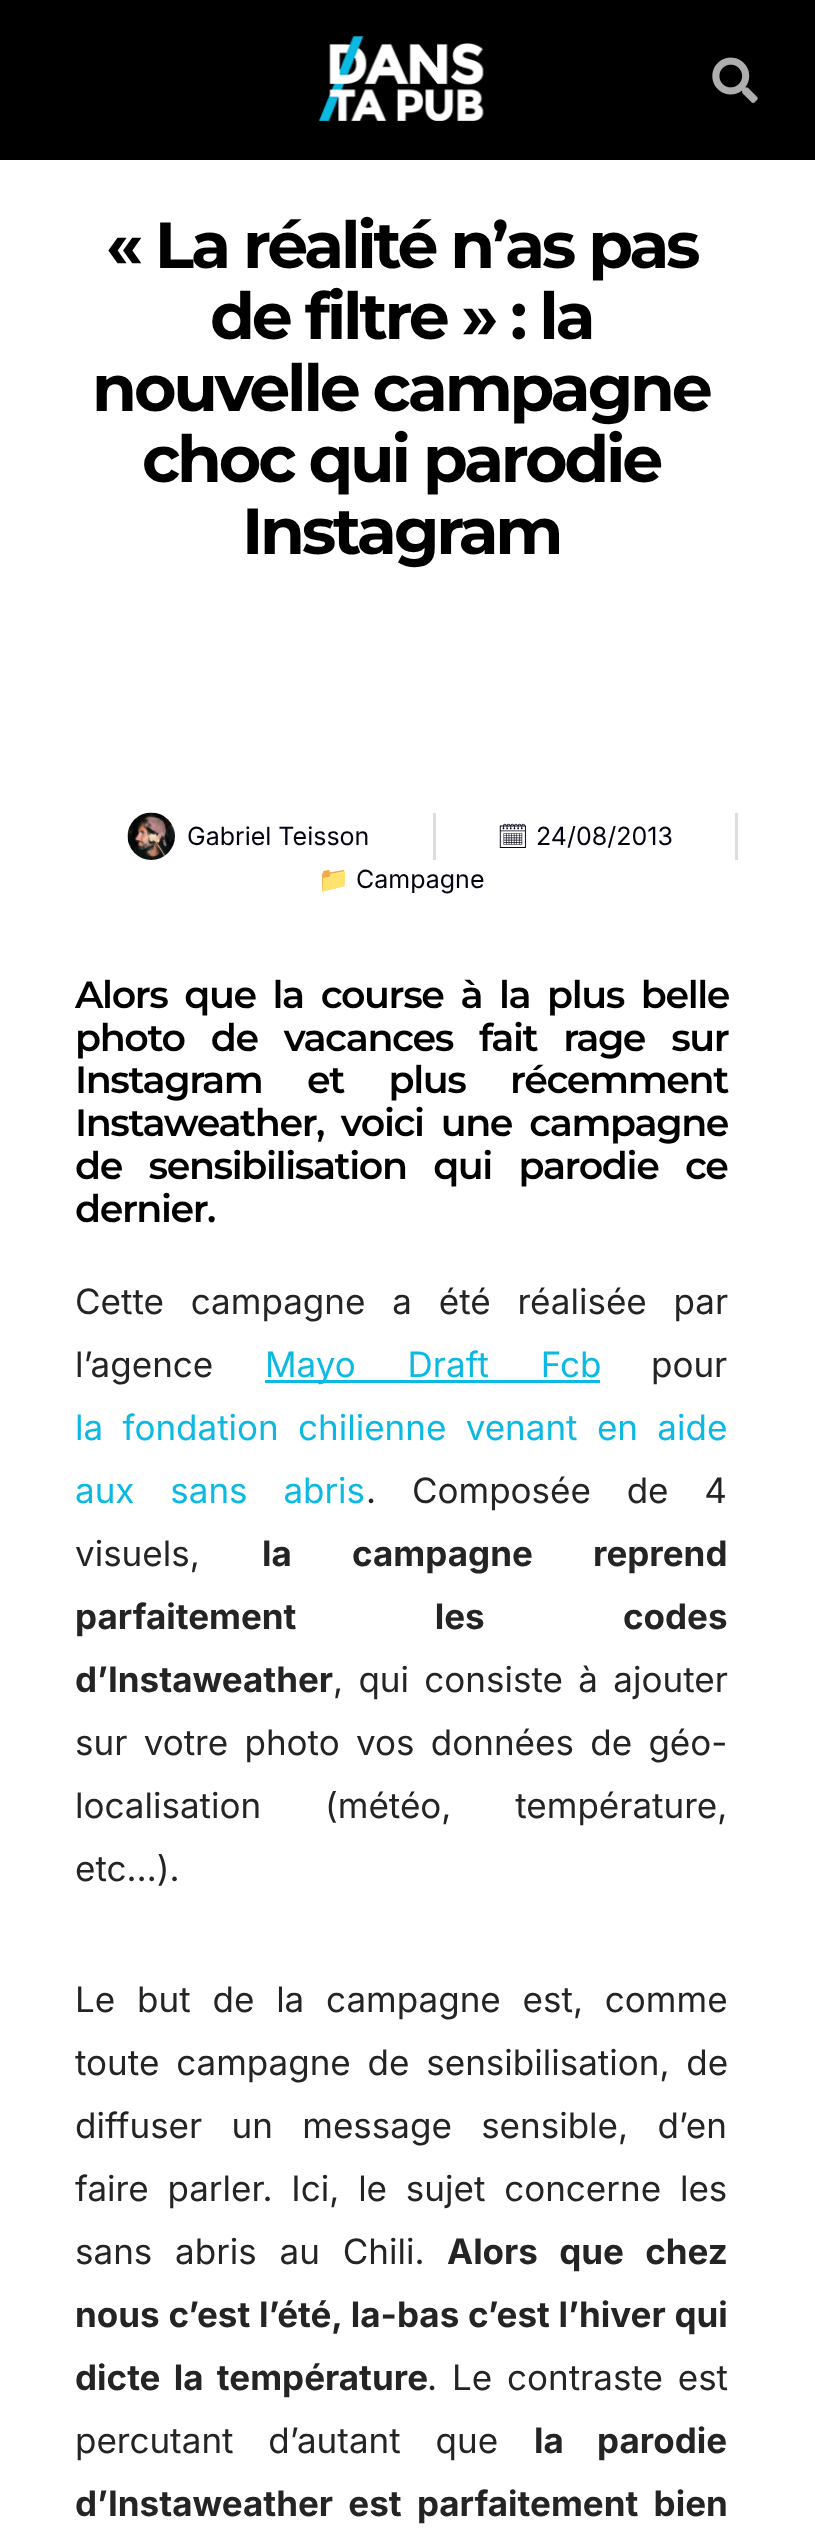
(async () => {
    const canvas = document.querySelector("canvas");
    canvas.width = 815;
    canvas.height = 2540;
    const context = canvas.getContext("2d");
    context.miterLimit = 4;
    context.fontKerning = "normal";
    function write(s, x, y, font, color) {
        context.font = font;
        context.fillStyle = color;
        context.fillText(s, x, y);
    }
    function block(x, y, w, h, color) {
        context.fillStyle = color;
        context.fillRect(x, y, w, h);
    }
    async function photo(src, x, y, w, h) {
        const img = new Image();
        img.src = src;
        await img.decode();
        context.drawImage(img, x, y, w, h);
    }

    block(0, 0, 815, 2540, "rgb(255, 255, 255)");
    block(0, 0, 815, 160, "rgb(0, 0, 0)");
    await photo("media/1.png", 319, 36, 165, 85);
    await photo("media/2.png", 712, 57, 46, 46);
    context.letterSpacing = "-3.25px";
    write("« La réalité n’as pas", 106, 268, "bold 65px Montserrat", "rgb(0, 0, 0)");
    write("de filtre » : la", 210, 339, "bold 65px Montserrat", "rgb(0, 0, 0)");
    write("nouvelle campagne", 92, 411, "bold 65px Montserrat", "rgb(0, 0, 0)");
    write("choc qui parodie", 142, 482, "bold 65px Montserrat", "rgb(0, 0, 0)");
    write("Instagram", 242, 554, "bold 65px Montserrat", "rgb(0, 0, 0)");
    await photo("media/3.png", 127, 812, 48, 48);
    context.letterSpacing = "0px";
    write("Gabriel Teisson", 187, 845, "25px Inter", "rgb(3, 2, 18)");
    block(433, 813, 3, 47, "rgb(221, 221, 221)");
    write("🗓", 497, 845, "25px Noto Emoji", "rgb(3, 2, 18)");
    write("24/08/2013", 536, 845, "25px Inter", "rgb(3, 2, 18)");
    block(735, 813, 3, 47, "rgb(221, 221, 221)");
    write("📁", 318, 888, "25px Noto Color Emoji", "rgb(3, 2, 18)");
    write("Campagne", 356, 888, "25px Inter", "rgb(3, 2, 18)");
    context.letterSpacing = "-1.4px";
    context.wordSpacing = "7.75px";
    write("Alors que la course à la plus belle", 75, 1008, "600 38px Montserrat", "rgb(0, 0, 0)");
    context.wordSpacing = "17px";
    write("photo de vacances fait rage sur", 75, 1051, "600 38px Montserrat", "rgb(0, 0, 0)");
    context.wordSpacing = "35.5px";
    write("Instagram et plus récemment", 75, 1093, "600 38px Montserrat", "rgb(0, 0, 0)");
    context.wordSpacing = "8px";
    write("Instaweather, voici une campagne", 75, 1136, "600 38px Montserrat", "rgb(0, 0, 0)");
    context.wordSpacing = "17.5px";
    write("de sensibilisation qui parodie ce", 75, 1179, "600 38px Montserrat", "rgb(0, 0, 0)");
    context.wordSpacing = "0px";
    write("dernier.", 75, 1222, "600 38px Montserrat", "rgb(0, 0, 0)");
    context.letterSpacing = "0px";
    context.wordSpacing = "17px";
    write("Cette campagne a été réalisée par", 75, 1314, "35px Inter", "rgb(36, 36, 36)");
    context.wordSpacing = "0px";
    write("l’agence", 75, 1377, "35px Inter", "rgb(36, 36, 36)");
    block(265, 1380, 335, 3, "rgb(11, 185, 226)");
    context.wordSpacing = "42px";
    write("Mayo Draft Fcb", 265, 1377, "35px Inter", "rgb(11, 185, 226)");
    context.wordSpacing = "0px";
    write("pour", 651, 1377, "35px Inter", "rgb(36, 36, 36)");
    context.wordSpacing = "9.5px";
    write("la fondation chilienne venant en aide", 75, 1440, "35px Inter", "rgb(11, 185, 226)");
    context.wordSpacing = "26px";
    write("aux sans abris", 75, 1503, "35px Inter", "rgb(11, 185, 226)");
    write(". Composée de 4", 366, 1503, "35px Inter", "rgb(36, 36, 36)");
    context.wordSpacing = "0px";
    write("visuels,", 75, 1566, "35px Inter", "rgb(36, 36, 36)");
    context.wordSpacing = "52px";
    write("la campagne reprend", 262, 1566, "bold 35px Inter", "rgb(36, 36, 36)");
    context.wordSpacing = "130px";
    write("parfaitement les codes", 75, 1629, "bold 35px Inter", "rgb(36, 36, 36)");
    context.wordSpacing = "0px";
    write("d’Instaweather", 75, 1692, "bold 35px Inter", "rgb(36, 36, 36)");
    context.wordSpacing = "5.5px";
    write(", qui consiste à ajouter", 333, 1692, "35px Inter", "rgb(36, 36, 36)");
    context.wordSpacing = "6.5px";
    write("sur votre photo vos données de géo-", 75, 1755, "35px Inter", "rgb(36, 36, 36)");
    context.wordSpacing = "54px";
    write("localisation (météo, température,", 75, 1818, "35px Inter", "rgb(36, 36, 36)");
    context.wordSpacing = "0px";
    write("etc…).", 75, 1881, "35px Inter", "rgb(36, 36, 36)");
    context.wordSpacing = "12px";
    write("Le but de la campagne est, comme", 75, 2012, "35px Inter", "rgb(36, 36, 36)");
    context.wordSpacing = "7px";
    write("toute campagne de sensibilisation, de", 75, 2075, "35px Inter", "rgb(36, 36, 36)");
    context.wordSpacing = "19.5px";
    write("diffuser un message sensible, d’en", 75, 2138, "35px Inter", "rgb(36, 36, 36)");
    context.wordSpacing = "9px";
    write("faire parler. Ici, le sujet concerne les", 75, 2201, "35px Inter", "rgb(36, 36, 36)");
    context.wordSpacing = "13px";
    write("sans abris au Chili.", 75, 2264, "35px Inter", "rgb(36, 36, 36)");
    write("Alors que chez", 447, 2264, "bold 35px Inter", "rgb(36, 36, 36)");
    context.wordSpacing = "0.5px";
    write("nous c’est l’été, la-bas c’est l’hiver qui", 75, 2327, "bold 35px Inter", "rgb(36, 36, 36)");
    context.wordSpacing = "5px";
    write("dicte la température", 75, 2390, "bold 35px Inter", "rgb(36, 36, 36)");
    write(". Le contraste est", 427, 2390, "35px Inter", "rgb(36, 36, 36)");
    context.wordSpacing = "25px";
    write("percutant d’autant que", 75, 2453, "35px Inter", "rgb(36, 36, 36)");
    write("la parodie", 534, 2453, "bold 35px Inter", "rgb(36, 36, 36)");
    context.wordSpacing = "7px";
    write("d’Instaweather est parfaitement bien", 75, 2516, "bold 35px Inter", "rgb(36, 36, 36)");
})();
